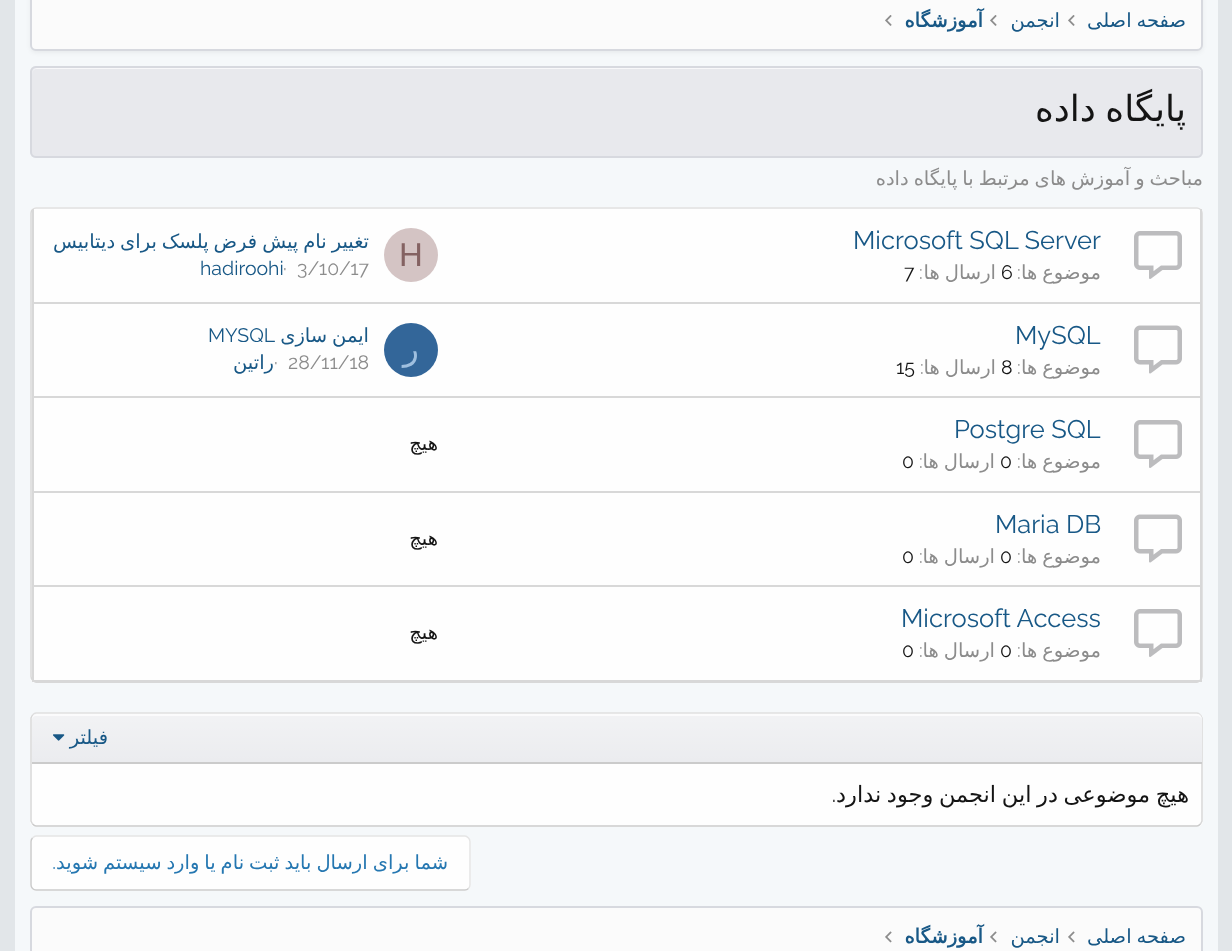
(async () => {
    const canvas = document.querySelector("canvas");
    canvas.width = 1232;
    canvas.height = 951;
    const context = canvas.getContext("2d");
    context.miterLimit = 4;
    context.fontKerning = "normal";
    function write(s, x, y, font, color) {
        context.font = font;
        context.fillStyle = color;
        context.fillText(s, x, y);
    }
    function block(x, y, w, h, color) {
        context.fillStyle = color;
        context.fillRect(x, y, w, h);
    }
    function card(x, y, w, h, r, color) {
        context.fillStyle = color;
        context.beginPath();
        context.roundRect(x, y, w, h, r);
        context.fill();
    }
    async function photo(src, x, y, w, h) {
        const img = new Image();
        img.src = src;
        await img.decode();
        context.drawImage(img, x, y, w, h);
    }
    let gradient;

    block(0, 0, 1232, 951, "rgb(226, 230, 233)");
    block(15, 0, 1203, 951, "rgb(245, 248, 250)");
    context.fillStyle = "rgba(0, 0, 0, 0.05)";
    context.filter = "blur(2px)";
    context.beginPath();
    context.roundRect(30, -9, 1173, 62, 6);
    context.fill();
    context.filter = "none";
    context.fillStyle = "rgb(251, 251, 251)";
    context.beginPath();
    context.roundRect(31, -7, 1171, 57, 5);
    context.fill();
    context.strokeStyle = "rgb(215, 217, 223)";
    context.lineWidth = 2;
    context.stroke();
    context.wordSpacing = "-1.25px";
    context.direction = "rtl";
    write("صفحه اصلی", 1186, 27, "19.5px DejaVu Sans", "rgb(24, 88, 134)");
    await photo("media/1.png", 1068, 15, 7, 11);
    context.wordSpacing = "0px";
    write("انجمن", 1060, 27, "19.5px DejaVu Sans", "rgb(24, 88, 134)");
    await photo("media/1.png", 990, 15, 7, 11);
    write("آموزشگاه", 983, 27, "bold 19.5px DejaVu Sans", "rgb(24, 88, 134)");
    await photo("media/1.png", 885, 15, 7, 11);
    card(30, 66, 1173, 92, 6, "rgb(232, 233, 237)");
    context.fillStyle = "rgb(248, 248, 250)";
    context.beginPath();
    context.moveTo(36, 69);
    context.lineTo(1197, 69);
    context.bezierCurveTo(1199, 69, 1202, 71, 1202, 74);
    context.bezierCurveTo(1202, 71, 1200, 68, 1197, 68);
    context.lineTo(37, 68);
    context.bezierCurveTo(34, 68, 32, 71, 32, 74);
    context.bezierCurveTo(32, 71, 34, 69, 36, 69);
    context.closePath();
    context.fill();
    context.beginPath();
    context.roundRect(31, 67, 1171, 90, 5);
    context.stroke();
    context.wordSpacing = "-2px";
    write("پایگاه داده", 1186, 121, "36px DejaVu Sans", "rgb(20, 20, 20)");
    context.wordSpacing = "-1.25px";
    write("مباحث و آموزش های مرتبط با پایگاه داده", 1203, 185, "19.5px DejaVu Sans", "rgb(140, 140, 140)");
    card(30, 207, 1173, 476, 6, "rgb(254, 254, 254)");
    context.beginPath();
    context.moveTo(32.5, 209.5);
    context.bezierCurveTo(33.5, 208.5, 34.5, 208, 36, 208);
    context.lineTo(1197, 208);
    context.bezierCurveTo(1198.5, 208, 1199.5, 208.5, 1200.5, 209.5);
    context.strokeStyle = "rgb(223, 223, 223)";
    context.lineWidth = 1.5;
    context.stroke();
    context.beginPath();
    context.moveTo(1200.5, 209.5);
    context.bezierCurveTo(1201.5, 210.5, 1202, 211.5, 1202, 213);
    context.lineTo(1202, 676.5);
    context.bezierCurveTo(1202, 678, 1201.5, 679, 1200.5, 680);
    context.strokeStyle = "rgb(216, 216, 216)";
    context.stroke();
    context.beginPath();
    context.moveTo(1200.5, 680);
    context.bezierCurveTo(1199.5, 681, 1198.5, 682, 1197, 682);
    context.lineTo(36, 682);
    context.bezierCurveTo(34.5, 682, 33.5, 681, 32.5, 680);
    context.strokeStyle = "rgb(203, 203, 203)";
    context.stroke();
    context.beginPath();
    context.moveTo(32.5, 680);
    context.bezierCurveTo(31.5, 679, 31, 678, 31, 676.5);
    context.lineTo(31, 213);
    context.bezierCurveTo(31, 211.5, 31.5, 210.5, 32.5, 209.5);
    context.strokeStyle = "rgb(216, 216, 216)";
    context.stroke();
    block(1200, 209, 2, 94, "rgb(216, 216, 216)");
    block(32, 302, 1170, 2, "rgb(216, 216, 216)");
    block(32, 209, 2, 94, "rgb(216, 216, 216)");
    await photo("media/2.png", 1134, 231, 48, 48);
    context.wordSpacing = "0px";
    context.direction = "ltr";
    write("Microsoft SQL Server", 853, 249, "25.5px Raleway", "rgb(24, 88, 134)");
    context.wordSpacing = "-1.25px";
    context.direction = "rtl";
    write("موضوع ها", 1101, 279, "19.5px DejaVu Sans", "rgb(140, 140, 140)");
    context.wordSpacing = "0px";
    context.direction = "ltr";
    write(":", 1017, 279, "19.5px Raleway", "rgb(140, 140, 140)");
    write("6", 1001, 279, "19.5px Raleway", "rgb(20, 20, 20)");
    context.wordSpacing = "-1.25px";
    context.direction = "rtl";
    write("ارسال ها", 996, 279, "19.5px DejaVu Sans", "rgb(140, 140, 140)");
    context.wordSpacing = "0px";
    context.direction = "ltr";
    write(":", 919, 279, "19.5px Raleway", "rgb(140, 140, 140)");
    write("7", 904, 279, "19.5px Raleway", "rgb(20, 20, 20)");
    context.fillStyle = "rgb(212, 196, 196)";
    context.beginPath();
    context.arc(411, 255, 27, 0, Math.PI * 2);
    context.fill();
    write("H", 399, 266, "33px Liberation Sans", "rgb(132, 98, 98)");
    context.save();
    context.beginPath();
    context.rect(48, 228, 321, 27);
    context.clip();
    context.wordSpacing = "-1.25px";
    context.direction = "rtl";
    write("تغییر نام پیش فرض پلسک برای دیتابیس", 369, 248, "19.5px DejaVu Sans", "rgb(24, 88, 134)");
    context.restore();
    write("3/10/17", 297, 275, "19.5px Raleway", "rgb(140, 140, 140)");
    write("·", 283, 275, "19.5px Raleway", "rgb(140, 140, 140)");
    write("hadiroohi", 200, 275, "19.5px Raleway", "rgb(24, 88, 134)");
    block(1200, 303, 2, 189, "rgb(216, 216, 216)");
    block(32, 396, 1170, 2, "rgb(216, 216, 216)");
    block(32, 303, 2, 95, "rgb(216, 216, 216)");
    await photo("media/3.png", 1134, 325, 48, 49);
    write("MySQL", 1015, 344, "25.5px Raleway", "rgb(24, 88, 134)");
    context.wordSpacing = "-1.25px";
    context.direction = "rtl";
    write("موضوع ها", 1101, 374, "19.5px DejaVu Sans", "rgb(140, 140, 140)");
    context.wordSpacing = "0px";
    context.direction = "ltr";
    write(":", 1017, 374, "19.5px Raleway", "rgb(140, 140, 140)");
    write("8", 1001, 374, "19.5px Raleway", "rgb(20, 20, 20)");
    context.wordSpacing = "-1.25px";
    context.direction = "rtl";
    write("ارسال ها", 996, 374, "19.5px DejaVu Sans", "rgb(140, 140, 140)");
    context.wordSpacing = "0px";
    context.direction = "ltr";
    write(":", 920, 374, "19.5px Raleway", "rgb(140, 140, 140)");
    write("15", 896, 374, "19.5px Raleway", "rgb(20, 20, 20)");
    context.wordSpacing = "-1.25px";
    context.direction = "rtl";
    write("ایمن سازی", 369, 342, "19.5px DejaVu Sans", "rgb(24, 88, 134)");
    context.wordSpacing = "0px";
    context.direction = "ltr";
    write("MYSQL", 208, 342, "19.5px Raleway", "rgb(24, 88, 134)");
    context.fillStyle = "rgb(51, 102, 153)";
    context.beginPath();
    context.arc(411, 350, 27, 0, Math.PI * 2);
    context.fill();
    context.direction = "rtl";
    write("ر", 419, 360, "33px DejaVu Sans", "rgb(159, 191, 223)");
    context.direction = "ltr";
    write("28/11/18", 288, 369, "19.5px Raleway", "rgb(140, 140, 140)");
    write("·", 274, 369, "19.5px Raleway", "rgb(140, 140, 140)");
    context.direction = "rtl";
    write("راتین", 274, 369, "19.5px DejaVu Sans", "rgb(24, 88, 134)");
    block(32, 491, 1170, 2, "rgb(216, 216, 216)");
    block(32, 398, 2, 94, "rgb(216, 216, 216)");
    await photo("media/2.png", 1134, 420, 48, 48);
    context.direction = "ltr";
    write("Postgre SQL", 954, 438, "25.5px Raleway", "rgb(24, 88, 134)");
    context.wordSpacing = "-1.25px";
    context.direction = "rtl";
    write("موضوع ها", 1101, 468, "19.5px DejaVu Sans", "rgb(140, 140, 140)");
    context.wordSpacing = "0px";
    context.direction = "ltr";
    write(":", 1017, 468, "19.5px Raleway", "rgb(140, 140, 140)");
    write("0", 1000, 468, "19.5px Raleway", "rgb(20, 20, 20)");
    context.wordSpacing = "-1.25px";
    context.direction = "rtl";
    write("ارسال ها", 995, 468, "19.5px DejaVu Sans", "rgb(140, 140, 140)");
    context.wordSpacing = "0px";
    context.direction = "ltr";
    write(":", 919, 468, "19.5px Raleway", "rgb(140, 140, 140)");
    write("0", 902, 468, "19.5px Raleway", "rgb(20, 20, 20)");
    context.direction = "rtl";
    write("هیچ", 438, 450, "19.5px DejaVu Sans", "rgb(20, 20, 20)");
    block(1200, 492, 2, 189, "rgb(216, 216, 216)");
    block(32, 585, 1170, 2, "rgb(216, 216, 216)");
    block(32, 492, 2, 95, "rgb(216, 216, 216)");
    await photo("media/3.png", 1134, 514, 48, 49);
    context.direction = "ltr";
    write("Maria DB", 995, 533, "25.5px Raleway", "rgb(24, 88, 134)");
    context.wordSpacing = "-1.25px";
    context.direction = "rtl";
    write("موضوع ها", 1101, 563, "19.5px DejaVu Sans", "rgb(140, 140, 140)");
    context.wordSpacing = "0px";
    context.direction = "ltr";
    write(":", 1017, 563, "19.5px Raleway", "rgb(140, 140, 140)");
    write("0", 1000, 563, "19.5px Raleway", "rgb(20, 20, 20)");
    context.wordSpacing = "-1.25px";
    context.direction = "rtl";
    write("ارسال ها", 995, 563, "19.5px DejaVu Sans", "rgb(140, 140, 140)");
    context.wordSpacing = "0px";
    context.direction = "ltr";
    write(":", 919, 563, "19.5px Raleway", "rgb(140, 140, 140)");
    write("0", 902, 563, "19.5px Raleway", "rgb(20, 20, 20)");
    context.direction = "rtl";
    write("هیچ", 438, 545, "19.5px DejaVu Sans", "rgb(20, 20, 20)");
    block(32, 680, 1170, 2, "rgb(216, 216, 216)");
    block(32, 587, 2, 94, "rgb(216, 216, 216)");
    await photo("media/2.png", 1134, 609, 48, 48);
    context.direction = "ltr";
    write("Microsoft Access", 901, 627, "25.5px Raleway", "rgb(24, 88, 134)");
    context.wordSpacing = "-1.25px";
    context.direction = "rtl";
    write("موضوع ها", 1101, 657, "19.5px DejaVu Sans", "rgb(140, 140, 140)");
    context.wordSpacing = "0px";
    context.direction = "ltr";
    write(":", 1017, 657, "19.5px Raleway", "rgb(140, 140, 140)");
    write("0", 1000, 657, "19.5px Raleway", "rgb(20, 20, 20)");
    context.wordSpacing = "-1.25px";
    context.direction = "rtl";
    write("ارسال ها", 995, 657, "19.5px DejaVu Sans", "rgb(140, 140, 140)");
    context.wordSpacing = "0px";
    context.direction = "ltr";
    write(":", 919, 657, "19.5px Raleway", "rgb(140, 140, 140)");
    write("0", 902, 657, "19.5px Raleway", "rgb(20, 20, 20)");
    context.direction = "rtl";
    write("هیچ", 438, 639, "19.5px DejaVu Sans", "rgb(20, 20, 20)");
    card(30, 713, 1173, 114, 6, "rgb(254, 254, 254)");
    context.beginPath();
    context.moveTo(32.5, 715);
    context.bezierCurveTo(33.5, 714, 34.5, 713, 36, 713);
    context.lineTo(1197, 713);
    context.bezierCurveTo(1198.5, 713, 1199.5, 714, 1200.5, 715);
    context.strokeStyle = "rgb(223, 223, 223)";
    context.stroke();
    context.beginPath();
    context.moveTo(1200.5, 715);
    context.lineTo(1202, 718);
    context.lineTo(1202, 821);
    context.lineTo(1200.5, 824);
    context.strokeStyle = "rgb(216, 216, 216)";
    context.stroke();
    context.beginPath();
    context.moveTo(1200.5, 824);
    context.bezierCurveTo(1199.5, 825, 1198.5, 826, 1197, 826);
    context.lineTo(36, 826);
    context.bezierCurveTo(34.5, 826, 33.5, 825, 32.5, 824);
    context.strokeStyle = "rgb(203, 203, 203)";
    context.stroke();
    context.beginPath();
    context.moveTo(32.5, 824);
    context.lineTo(31, 821);
    context.lineTo(31, 718);
    context.lineTo(32.5, 715);
    context.strokeStyle = "rgb(216, 216, 216)";
    context.stroke();
    context.fillStyle = "rgb(235, 236, 239)";
    context.beginPath();
    context.roundRect(32, 714, 1170, 50, [5, 5, 0, 0]);
    context.fill();
    gradient = context.createLinearGradient(617, 714, 617, 762);
    gradient.addColorStop(0, "rgba(255, 255, 255, 0.35)");
    gradient.addColorStop(1, "rgba(255, 255, 255, 0)");
    context.fillStyle = gradient;
    context.beginPath();
    context.roundRect(32, 714, 1170, 48, [5, 5, 0, 0]);
    context.fill();
    context.fillStyle = "rgba(255, 255, 255, 0.7)";
    context.beginPath();
    context.moveTo(36, 716);
    context.lineTo(1197, 716);
    context.bezierCurveTo(1199, 716, 1202, 718, 1202, 720);
    context.bezierCurveTo(1202, 717, 1200, 714, 1197, 714);
    context.lineTo(37, 714);
    context.bezierCurveTo(34, 714, 32, 717, 32, 720);
    context.bezierCurveTo(32, 718, 34, 716, 36, 716);
    context.closePath();
    context.fill();
    block(32, 762, 1170, 2, "rgb(203, 203, 203)");
    write("فیلتر", 108, 744, "19.5px DejaVu Sans", "rgb(24, 88, 134)");
    await photo("media/4.png", 53, 734, 12, 7);
    context.wordSpacing = "-1.5px";
    write("هیچ موضوعی در این انجمن وجود ندارد", 1189, 802, "22.5px DejaVu Sans", "rgb(20, 20, 20)");
    context.wordSpacing = "0px";
    write(".", 836, 802, "22.5px Raleway", "rgb(20, 20, 20)");
    card(30, 836, 441, 55, 6, "rgb(254, 254, 254)");
    context.beginPath();
    context.moveTo(32.5, 838);
    context.bezierCurveTo(33.5, 837, 34.5, 836, 36, 836);
    context.lineTo(465, 836);
    context.bezierCurveTo(466.5, 836, 467.5, 837, 468.5, 838);
    context.bezierCurveTo(469.5, 839, 470, 840, 470, 841.5);
    context.lineTo(470, 885);
    context.bezierCurveTo(470, 886.5, 469.5, 887.5, 468.5, 888.5);
    context.strokeStyle = "rgb(229, 229, 229)";
    context.stroke();
    context.beginPath();
    context.moveTo(468.5, 888.5);
    context.bezierCurveTo(467.5, 889.5, 466.5, 890, 465, 890);
    context.lineTo(36, 890);
    context.bezierCurveTo(34.5, 890, 33.5, 889.5, 32.5, 888.5);
    context.bezierCurveTo(31.5, 887.5, 31, 886.5, 31, 885);
    context.lineTo(31, 841.5);
    context.bezierCurveTo(31, 840, 31.5, 839, 32.5, 838);
    context.strokeStyle = "rgb(203, 203, 203)";
    context.stroke();
    context.wordSpacing = "-1.25px";
    write("شما برای ارسال باید ثبت نام یا وارد سیستم شوید", 448, 869, "19.5px DejaVu Sans", "rgb(37, 119, 177)");
    context.wordSpacing = "0px";
    write(".", 56, 869, "19.5px Raleway", "rgb(37, 119, 177)");
    context.fillStyle = "rgb(251, 251, 251)";
    context.beginPath();
    context.roundRect(31, 907, 1171, 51, 5);
    context.fill();
    context.strokeStyle = "rgb(215, 217, 223)";
    context.lineWidth = 2;
    context.stroke();
    context.wordSpacing = "-1.25px";
    write("صفحه اصلی", 1186, 943, "19.5px DejaVu Sans", "rgb(24, 88, 134)");
    await photo("media/5.png", 1068, 931, 7, 12);
    context.wordSpacing = "0px";
    write("انجمن", 1060, 943, "19.5px DejaVu Sans", "rgb(24, 88, 134)");
    await photo("media/5.png", 990, 931, 7, 12);
    write("آموزشگاه", 983, 943, "bold 19.5px DejaVu Sans", "rgb(24, 88, 134)");
    await photo("media/5.png", 885, 931, 7, 12);
})();
